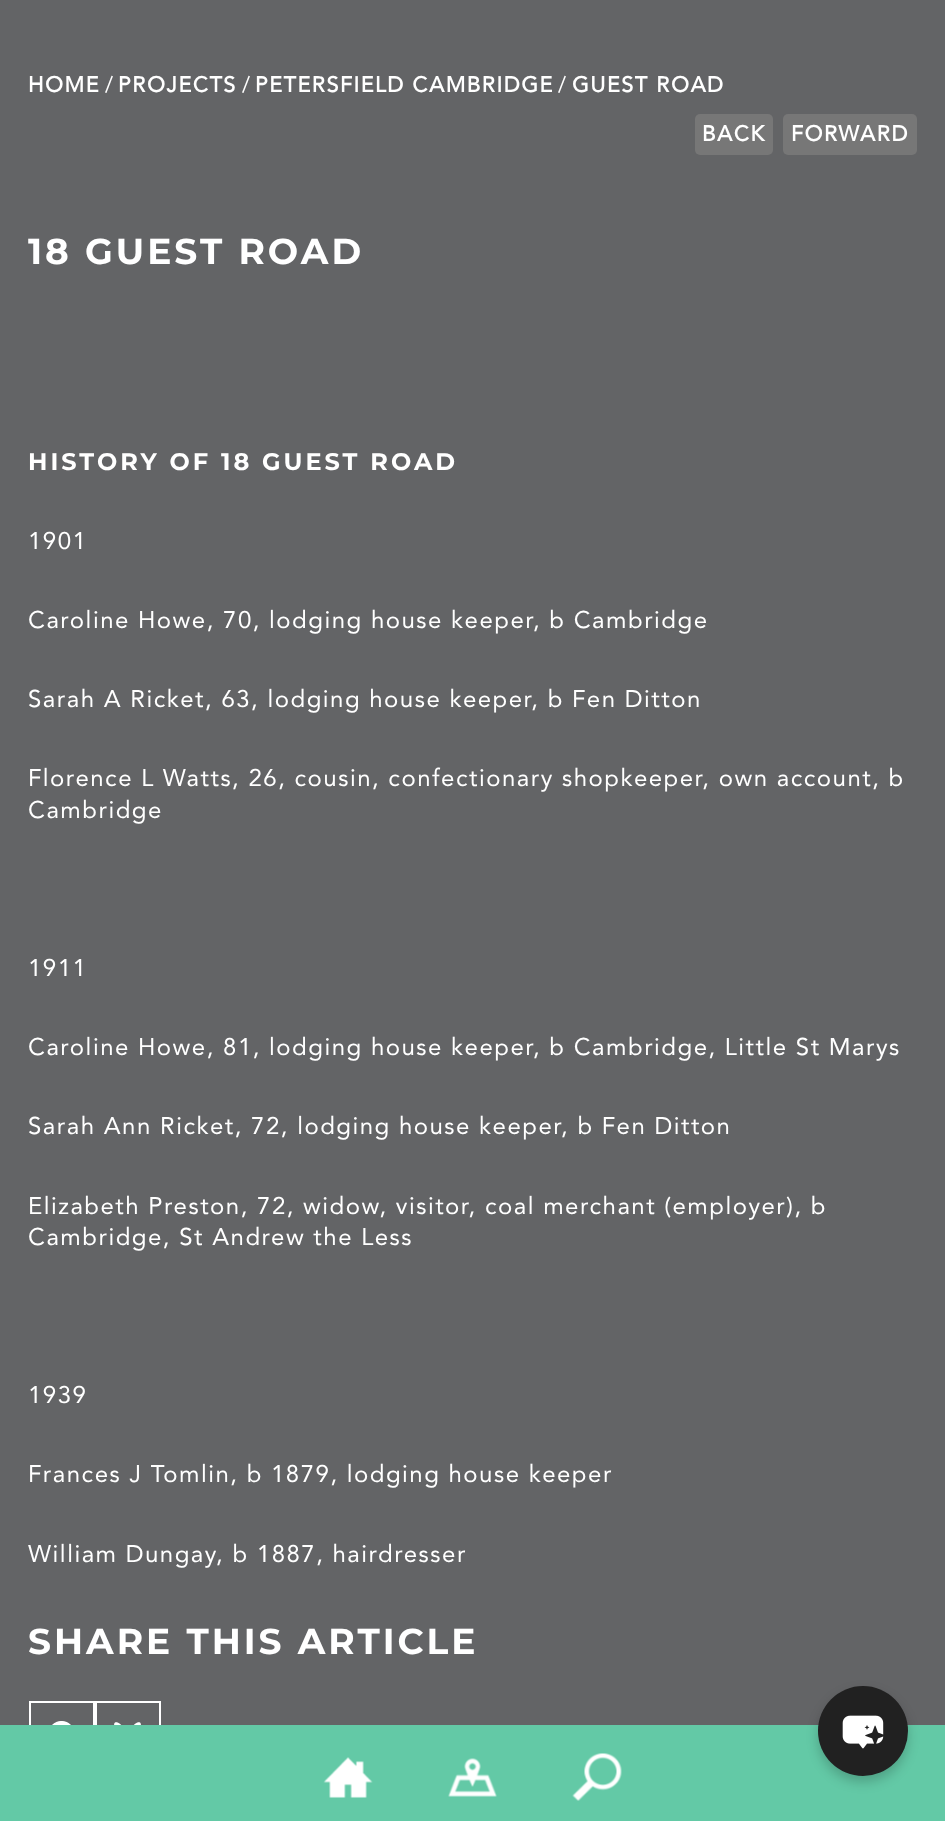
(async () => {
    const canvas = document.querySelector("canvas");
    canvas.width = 945;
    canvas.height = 1821;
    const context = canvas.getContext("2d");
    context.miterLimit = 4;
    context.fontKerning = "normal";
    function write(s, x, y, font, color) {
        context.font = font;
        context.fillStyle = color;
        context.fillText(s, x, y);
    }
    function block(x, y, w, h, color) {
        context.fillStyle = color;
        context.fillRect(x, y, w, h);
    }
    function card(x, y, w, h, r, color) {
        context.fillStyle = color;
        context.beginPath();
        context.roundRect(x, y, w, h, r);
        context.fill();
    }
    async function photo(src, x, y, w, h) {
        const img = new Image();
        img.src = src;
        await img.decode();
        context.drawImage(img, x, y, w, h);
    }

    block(0, 0, 945, 1821, "rgb(99, 201, 166)");
    block(0, 0, 945, 1725, "rgb(99, 100, 102)");
    context.letterSpacing = "1.5px";
    write("HOME", 28, 92, "bold 21.6px Avenir", "rgb(255, 255, 255)");
    write("/", 105, 92, "21.6px Avenir", "rgb(255, 255, 255)");
    write("PROJECTS", 118, 92, "bold 21.6px Avenir", "rgb(255, 255, 255)");
    write("/", 242, 92, "21.6px Avenir", "rgb(255, 255, 255)");
    write("PETERSFIELD CAMBRIDGE", 255, 92, "bold 21.6px Avenir", "rgb(255, 255, 255)");
    write("/", 558, 92, "21.6px Avenir", "rgb(255, 255, 255)");
    write("GUEST ROAD", 572, 92, "bold 21.6px Avenir", "rgb(255, 255, 255)");
    card(695, 114, 78, 41, 5, "rgb(119, 119, 119)");
    write("BACK", 702, 141, "bold 21.6px Avenir", "rgb(255, 255, 255)");
    card(783, 114, 134, 41, 5, "rgb(119, 119, 119)");
    write("FORWARD", 791, 141, "bold 21.6px Avenir", "rgb(255, 255, 255)");
    context.letterSpacing = "3px";
    write("18 GUEST ROAD", 28, 264, "bold 36px Montserrat", "rgb(255, 255, 255)");
    write("HISTORY OF 18 GUEST ROAD", 28, 470, "bold 24px Montserrat", "rgb(255, 255, 255)");
    context.letterSpacing = "1.5px";
    write("1901", 28, 549, "24px Avenir", "rgb(255, 255, 255)");
    write("Caroline Howe, 70, lodging house keeper, b Cambridge", 28, 628, "24px Avenir", "rgb(255, 255, 255)");
    write("Sarah A Ricket, 63, lodging house keeper, b Fen Ditton", 28, 707, "24px Avenir", "rgb(255, 255, 255)");
    write("Florence L Watts, 26, cousin, confectionary shopkeeper, own account, b", 28, 786, "24px Avenir", "rgb(255, 255, 255)");
    write("Cambridge", 28, 818, "24px Avenir", "rgb(255, 255, 255)");
    write("1911", 28, 976, "24px Avenir", "rgb(255, 255, 255)");
    write("Caroline Howe, 81, lodging house keeper, b Cambridge, Little St Marys", 28, 1055, "24px Avenir", "rgb(255, 255, 255)");
    write("Sarah Ann Ricket, 72, lodging house keeper, b Fen Ditton", 28, 1134, "24px Avenir", "rgb(255, 255, 255)");
    write("Elizabeth Preston, 72, widow, visitor, coal merchant (employer), b", 28, 1214, "24px Avenir", "rgb(255, 255, 255)");
    write("Cambridge, St Andrew the Less", 28, 1245, "24px Avenir", "rgb(255, 255, 255)");
    write("1939", 28, 1403, "24px Avenir", "rgb(255, 255, 255)");
    write("Frances J Tomlin, b 1879, lodging house keeper", 28, 1482, "24px Avenir", "rgb(255, 255, 255)");
    write("William Dungay, b 1887, hairdresser", 28, 1562, "24px Avenir", "rgb(255, 255, 255)");
    context.letterSpacing = "3px";
    write("SHARE THIS ARTICLE", 28, 1654, "bold 36px Montserrat", "rgb(255, 255, 255)");
    context.save();
    context.beginPath();
    context.rect(0, 0, 945, 1725);
    context.clip();
    context.strokeStyle = "rgb(255, 255, 255)";
    context.lineWidth = 2;
    context.strokeRect(30, 1702, 64, 64);
    context.restore();
    await photo("media/1.png", 52, 1721, 19, 4);
    context.save();
    context.beginPath();
    context.rect(0, 0, 945, 1725);
    context.clip();
    context.strokeStyle = "rgb(255, 255, 255)";
    context.lineWidth = 2;
    context.strokeRect(96, 1702, 64, 64);
    context.restore();
    await photo("media/2.png", 114, 1722, 27, 3);
    await photo("media/3.png", 323, 1757, 50, 41);
    await photo("media/4.png", 448, 1758, 49, 39);
    await photo("media/5.png", 572, 1753, 50, 48);
    context.fillStyle = "rgba(0, 0, 0, 0.2)";
    context.filter = "blur(6px)";
    context.beginPath();
    context.roundRect(818, 1692, 90, 90, 45);
    context.fill();
    context.filter = "none";
    context.fillStyle = "rgb(33, 33, 33)";
    context.beginPath();
    context.arc(863, 1731, 45, 0, Math.PI * 2);
    context.fill();
    await photo("media/6.png", 842, 1715, 42, 34);
})();
